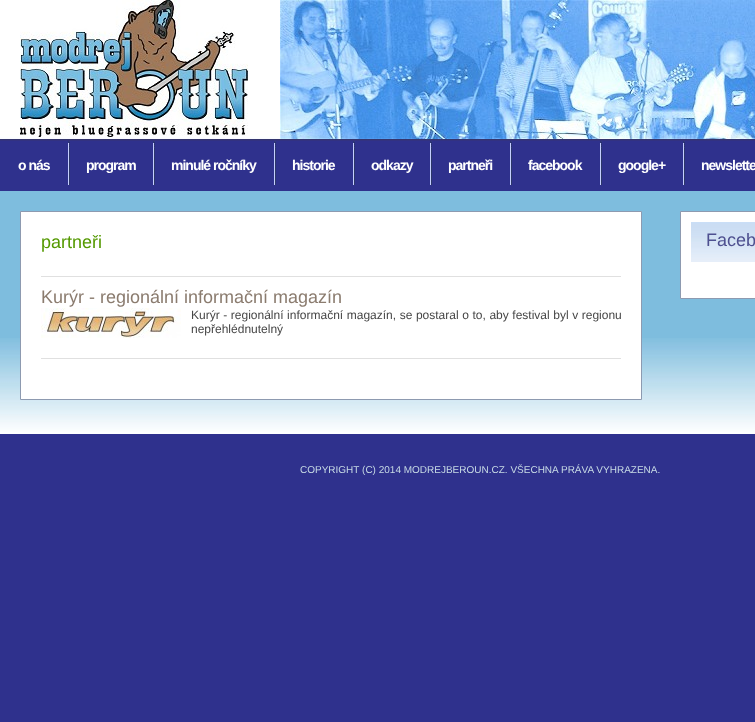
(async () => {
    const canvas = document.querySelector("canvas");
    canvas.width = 755;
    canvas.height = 722;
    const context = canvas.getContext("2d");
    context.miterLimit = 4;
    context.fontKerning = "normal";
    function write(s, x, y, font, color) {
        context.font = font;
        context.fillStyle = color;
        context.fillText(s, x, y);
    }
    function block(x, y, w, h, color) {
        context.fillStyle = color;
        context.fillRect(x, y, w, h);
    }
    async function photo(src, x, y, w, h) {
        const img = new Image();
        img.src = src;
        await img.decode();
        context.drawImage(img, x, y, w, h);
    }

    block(0, 0, 755, 722, "rgb(47, 49, 141)");
    await photo("media/1.png", 0, 0, 755, 141);
    await photo("media/2.png", 20, 0, 228, 137);
    await photo("media/3.png", 280, 0, 475, 139);
    context.letterSpacing = "-1px";
    write("o nás", 18, 170, "bold 14px Liberation Sans", "rgb(255, 255, 255)");
    await photo("media/4.png", 68, 141, 2, 44);
    write("program", 86, 170, "bold 14px Liberation Sans", "rgb(255, 255, 255)");
    await photo("media/4.png", 153, 141, 2, 44);
    write("minulé ročníky", 171, 170, "bold 14px Liberation Sans", "rgb(255, 255, 255)");
    await photo("media/4.png", 274, 141, 2, 44);
    write("historie", 292, 170, "bold 14px Liberation Sans", "rgb(255, 255, 255)");
    await photo("media/4.png", 353, 141, 2, 44);
    write("odkazy", 371, 170, "bold 14px Liberation Sans", "rgb(255, 255, 255)");
    await photo("media/4.png", 430, 141, 2, 44);
    write("partneři", 448, 170, "bold 14px Liberation Sans", "rgb(255, 255, 255)");
    await photo("media/4.png", 510, 141, 2, 44);
    write("facebook", 528, 170, "bold 14px Liberation Sans", "rgb(255, 255, 255)");
    await photo("media/4.png", 600, 141, 2, 44);
    write("google+", 618, 170, "bold 14px Liberation Sans", "rgb(255, 255, 255)");
    await photo("media/4.png", 683, 141, 2, 44);
    write("newslette", 701, 170, "bold 14px Liberation Sans", "rgb(255, 255, 255)");
    block(0, 191, 755, 147, "rgb(126, 189, 222)");
    await photo("media/5.png", 0, 338, 755, 96);
    context.fillStyle = "rgb(255, 255, 255)";
    context.beginPath();
    context.rect(20.5, 211.5, 621, 188);
    context.fill();
    context.strokeStyle = "rgb(141, 154, 176)";
    context.stroke();
    context.letterSpacing = "0px";
    write("partneři", 41, 248, "18px Liberation Sans", "rgb(84, 153, 0)");
    block(41, 276, 580, 1, "rgb(224, 224, 224)");
    write("Kurýr - regionální informační magazín", 41, 303, "18px Liberation Sans", "rgb(139, 124, 111)");
    await photo("media/6.png", 41, 308, 140, 30);
    context.wordSpacing = "0.25px";
    write("Kurýr - regionální informační magazín, se postaral o to, aby festival byl v regionu", 191, 319, "12px Liberation Sans", "rgb(70, 70, 70)");
    context.wordSpacing = "0px";
    write("nepřehlédnutelný", 191, 333, "12px Liberation Sans", "rgb(70, 70, 70)");
    block(41, 358, 580, 1, "rgb(224, 224, 224)");
    context.fillStyle = "rgb(255, 255, 255)";
    context.beginPath();
    context.rect(680.5, 211.5, 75, 87);
    context.fill();
    context.stroke();
    await photo("media/7.png", 691, 222, 64, 40);
    write("Faceb", 706, 246, "18px Liberation Sans", "rgb(78, 80, 144)");
    write("COPYRIGHT (C) 2014 MODREJBEROUN.CZ. VŠECHNA PRÁVA VYHRAZENA.", 300, 473, "10px Liberation Sans", "rgb(199, 218, 229)");
})();
